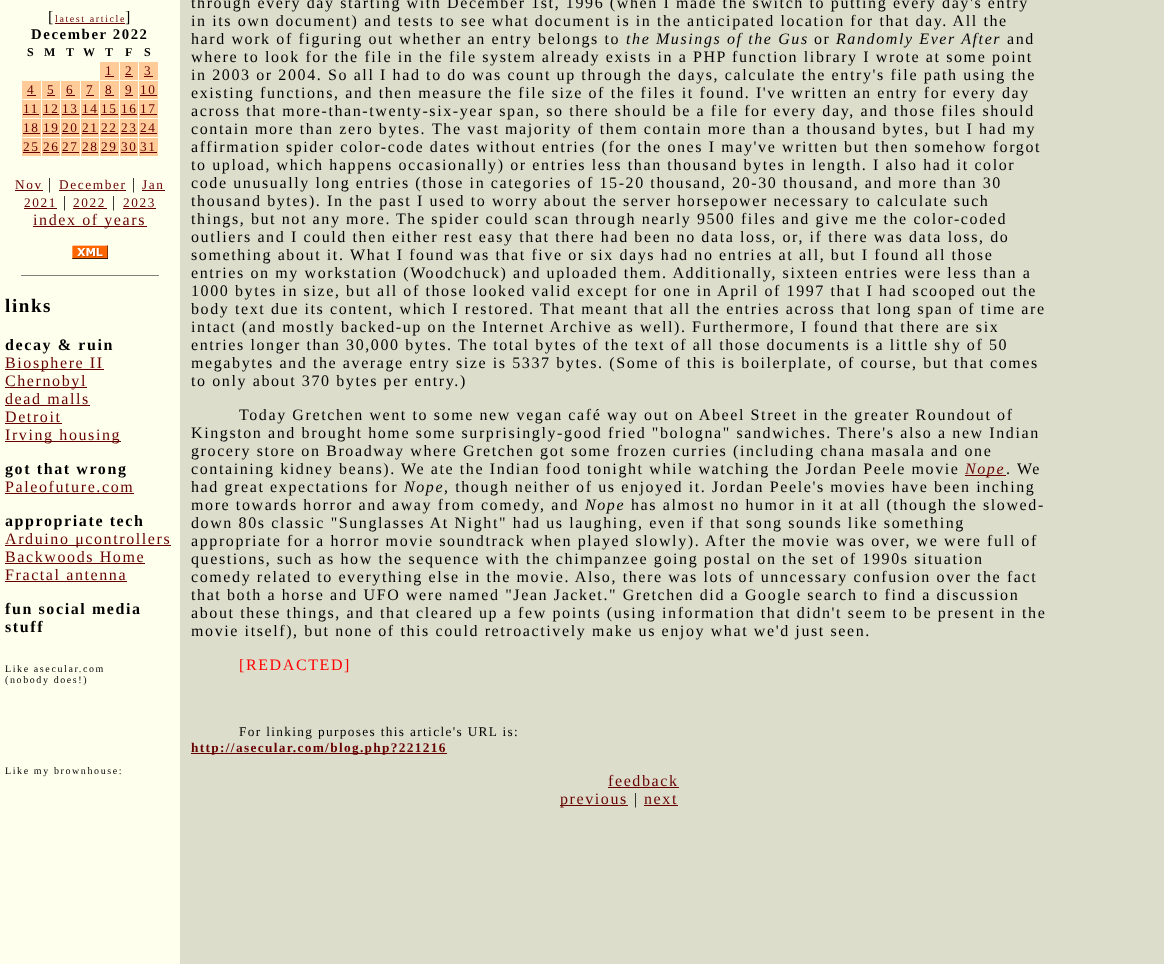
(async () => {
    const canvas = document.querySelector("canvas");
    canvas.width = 1164;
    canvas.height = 964;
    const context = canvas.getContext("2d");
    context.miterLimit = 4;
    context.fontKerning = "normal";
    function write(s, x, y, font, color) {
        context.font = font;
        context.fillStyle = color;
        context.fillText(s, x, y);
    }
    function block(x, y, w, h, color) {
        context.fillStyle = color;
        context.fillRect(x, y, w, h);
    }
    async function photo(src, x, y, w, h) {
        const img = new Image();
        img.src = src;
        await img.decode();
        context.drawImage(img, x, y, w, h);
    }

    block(0, 0, 1164, 964, "rgb(221, 221, 204)");
    block(0, 0, 180, 964, "rgb(255, 255, 238)");
    context.letterSpacing = "1.6px";
    write("[", 48, 22, "16px Liberation Serif", "rgb(0, 0, 0)");
    write("latest article", 55, 22, "10px Liberation Serif", "rgb(102, 0, 0)");
    block(55, 23, 70, 1, "rgb(102, 0, 0)");
    write("]", 125, 22, "16px Liberation Serif", "rgb(0, 0, 0)");
    write("December 2022", 31, 39, "bold 14.75px Liberation Serif", "rgb(0, 0, 0)");
    write("S", 27, 56, "bold 12px Liberation Serif", "rgb(0, 0, 0)");
    write("M", 44, 56, "bold 12px Liberation Serif", "rgb(0, 0, 0)");
    write("T", 66, 56, "bold 12px Liberation Serif", "rgb(0, 0, 0)");
    write("W", 83, 56, "bold 12px Liberation Serif", "rgb(0, 0, 0)");
    write("T", 105, 56, "bold 12px Liberation Serif", "rgb(0, 0, 0)");
    write("F", 125, 56, "bold 12px Liberation Serif", "rgb(0, 0, 0)");
    write("S", 144, 56, "bold 12px Liberation Serif", "rgb(0, 0, 0)");
    block(100, 62, 19, 18, "rgb(255, 204, 153)");
    write("1", 105, 75, "13.3px Liberation Serif", "rgb(102, 0, 0)");
    block(105, 76, 9, 1, "rgb(102, 0, 0)");
    block(120, 62, 18, 18, "rgb(255, 204, 153)");
    write("2", 125, 75, "13.3px Liberation Serif", "rgb(102, 0, 0)");
    block(125, 76, 8, 1, "rgb(102, 0, 0)");
    block(139, 62, 19, 18, "rgb(255, 204, 153)");
    write("3", 144, 75, "13.3px Liberation Serif", "rgb(102, 0, 0)");
    block(144, 76, 9, 1, "rgb(102, 0, 0)");
    block(22, 81, 19, 18, "rgb(255, 204, 153)");
    write("4", 27, 94, "13.3px Liberation Serif", "rgb(102, 0, 0)");
    block(27, 95, 9, 1, "rgb(102, 0, 0)");
    block(42, 81, 18, 18, "rgb(255, 204, 153)");
    write("5", 47, 94, "13.3px Liberation Serif", "rgb(102, 0, 0)");
    block(47, 95, 8, 1, "rgb(102, 0, 0)");
    block(61, 81, 19, 18, "rgb(255, 204, 153)");
    write("6", 66, 94, "13.3px Liberation Serif", "rgb(102, 0, 0)");
    block(66, 95, 9, 1, "rgb(102, 0, 0)");
    block(81, 81, 18, 18, "rgb(255, 204, 153)");
    write("7", 86, 94, "13.3px Liberation Serif", "rgb(102, 0, 0)");
    block(86, 95, 8, 1, "rgb(102, 0, 0)");
    block(100, 81, 19, 18, "rgb(255, 204, 153)");
    write("8", 105, 94, "13.3px Liberation Serif", "rgb(102, 0, 0)");
    block(105, 95, 9, 1, "rgb(102, 0, 0)");
    block(120, 81, 18, 18, "rgb(255, 204, 153)");
    write("9", 125, 94, "13.3px Liberation Serif", "rgb(102, 0, 0)");
    block(125, 95, 8, 1, "rgb(102, 0, 0)");
    block(139, 81, 19, 18, "rgb(255, 204, 153)");
    write("10", 140, 94, "13.3px Liberation Serif", "rgb(102, 0, 0)");
    block(140, 95, 17, 1, "rgb(102, 0, 0)");
    block(22, 100, 19, 18, "rgb(255, 204, 153)");
    write("11", 23, 113, "13.3px Liberation Serif", "rgb(102, 0, 0)");
    block(23, 114, 16, 1, "rgb(102, 0, 0)");
    block(42, 100, 18, 18, "rgb(255, 204, 153)");
    write("12", 43, 113, "13.3px Liberation Serif", "rgb(102, 0, 0)");
    block(43, 114, 16, 1, "rgb(102, 0, 0)");
    block(61, 100, 19, 18, "rgb(255, 204, 153)");
    write("13", 62, 113, "13.3px Liberation Serif", "rgb(102, 0, 0)");
    block(62, 114, 17, 1, "rgb(102, 0, 0)");
    block(81, 100, 18, 18, "rgb(255, 204, 153)");
    write("14", 82, 113, "13.3px Liberation Serif", "rgb(102, 0, 0)");
    block(82, 114, 16, 1, "rgb(102, 0, 0)");
    block(100, 100, 19, 18, "rgb(255, 204, 153)");
    write("15", 101, 113, "13.3px Liberation Serif", "rgb(102, 0, 0)");
    block(101, 114, 17, 1, "rgb(102, 0, 0)");
    block(120, 100, 18, 18, "rgb(255, 204, 153)");
    write("16", 121, 113, "13.3px Liberation Serif", "rgb(102, 0, 0)");
    block(121, 114, 16, 1, "rgb(102, 0, 0)");
    block(139, 100, 19, 18, "rgb(255, 204, 153)");
    write("17", 140, 113, "13.3px Liberation Serif", "rgb(102, 0, 0)");
    block(140, 114, 17, 1, "rgb(102, 0, 0)");
    block(22, 119, 19, 18, "rgb(255, 204, 153)");
    write("18", 23, 132, "13.3px Liberation Serif", "rgb(102, 0, 0)");
    block(23, 133, 17, 1, "rgb(102, 0, 0)");
    block(42, 119, 18, 18, "rgb(255, 204, 153)");
    write("19", 43, 132, "13.3px Liberation Serif", "rgb(102, 0, 0)");
    block(43, 133, 16, 1, "rgb(102, 0, 0)");
    block(61, 119, 19, 18, "rgb(255, 204, 153)");
    write("20", 62, 132, "13.3px Liberation Serif", "rgb(102, 0, 0)");
    block(62, 133, 17, 1, "rgb(102, 0, 0)");
    block(81, 119, 18, 18, "rgb(255, 204, 153)");
    write("21", 82, 132, "13.3px Liberation Serif", "rgb(102, 0, 0)");
    block(82, 133, 16, 1, "rgb(102, 0, 0)");
    block(100, 119, 19, 18, "rgb(255, 204, 153)");
    write("22", 101, 132, "13.3px Liberation Serif", "rgb(102, 0, 0)");
    block(101, 133, 17, 1, "rgb(102, 0, 0)");
    block(120, 119, 18, 18, "rgb(255, 204, 153)");
    write("23", 121, 132, "13.3px Liberation Serif", "rgb(102, 0, 0)");
    block(121, 133, 16, 1, "rgb(102, 0, 0)");
    block(139, 119, 19, 18, "rgb(255, 204, 153)");
    write("24", 140, 132, "13.3px Liberation Serif", "rgb(102, 0, 0)");
    block(140, 133, 17, 1, "rgb(102, 0, 0)");
    block(22, 138, 19, 18, "rgb(255, 204, 153)");
    write("25", 23, 151, "13.3px Liberation Serif", "rgb(102, 0, 0)");
    block(23, 152, 17, 1, "rgb(102, 0, 0)");
    block(42, 138, 18, 18, "rgb(255, 204, 153)");
    write("26", 43, 151, "13.3px Liberation Serif", "rgb(102, 0, 0)");
    block(43, 152, 16, 1, "rgb(102, 0, 0)");
    block(61, 138, 19, 18, "rgb(255, 204, 153)");
    write("27", 62, 151, "13.3px Liberation Serif", "rgb(102, 0, 0)");
    block(62, 152, 17, 1, "rgb(102, 0, 0)");
    block(81, 138, 18, 18, "rgb(255, 204, 153)");
    write("28", 82, 151, "13.3px Liberation Serif", "rgb(102, 0, 0)");
    block(82, 152, 16, 1, "rgb(102, 0, 0)");
    block(100, 138, 19, 18, "rgb(255, 204, 153)");
    write("29", 101, 151, "13.3px Liberation Serif", "rgb(102, 0, 0)");
    block(101, 152, 17, 1, "rgb(102, 0, 0)");
    block(120, 138, 18, 18, "rgb(255, 204, 153)");
    write("30", 121, 151, "13.3px Liberation Serif", "rgb(102, 0, 0)");
    block(121, 152, 16, 1, "rgb(102, 0, 0)");
    block(139, 138, 19, 18, "rgb(255, 204, 153)");
    write("31", 140, 151, "13.3px Liberation Serif", "rgb(102, 0, 0)");
    block(140, 152, 17, 1, "rgb(102, 0, 0)");
    write("Nov", 15, 189, "13.3px Liberation Serif", "rgb(102, 0, 0)");
    block(15, 190, 28, 1, "rgb(102, 0, 0)");
    write("|", 48, 189, "16px Liberation Serif", "rgb(0, 0, 0)");
    write("December", 59, 189, "13.3px Liberation Serif", "rgb(102, 0, 0)");
    block(59, 190, 67, 1, "rgb(102, 0, 0)");
    write("|", 132, 189, "16px Liberation Serif", "rgb(0, 0, 0)");
    write("Jan", 142, 189, "13.3px Liberation Serif", "rgb(102, 0, 0)");
    block(142, 190, 23, 1, "rgb(102, 0, 0)");
    write("2021", 24, 207, "13.3px Liberation Serif", "rgb(102, 0, 0)");
    block(24, 208, 33, 1, "rgb(102, 0, 0)");
    write("|", 63, 207, "16px Liberation Serif", "rgb(0, 0, 0)");
    write("2022", 73, 207, "13.3px Liberation Serif", "rgb(102, 0, 0)");
    block(73, 208, 34, 1, "rgb(102, 0, 0)");
    write("|", 112, 207, "16px Liberation Serif", "rgb(0, 0, 0)");
    write("2023", 123, 207, "13.3px Liberation Serif", "rgb(102, 0, 0)");
    block(123, 208, 33, 1, "rgb(102, 0, 0)");
    block(33, 226, 114, 1, "rgb(102, 0, 0)");
    write("index of years", 33, 225, "16px Liberation Serif", "rgb(102, 0, 0)");
    await photo("media/1.png", 72, 245, 36, 14);
    block(21, 275, 138, 1, "rgb(128, 128, 128)");
    write("links", 5, 312, "bold 19px Liberation Serif", "rgb(0, 0, 0)");
    write("decay & ruin", 5, 350, "bold 16px Liberation Serif", "rgb(0, 0, 0)");
    block(5, 369, 99, 1, "rgb(102, 0, 0)");
    write("Biosphere II", 5, 368, "16px Liberation Serif", "rgb(102, 0, 0)");
    block(5, 387, 82, 1, "rgb(102, 0, 0)");
    write("Chernobyl", 5, 386, "16px Liberation Serif", "rgb(102, 0, 0)");
    write("dead malls", 5, 404, "16px Liberation Serif", "rgb(102, 0, 0)");
    block(5, 405, 85, 1, "rgb(102, 0, 0)");
    write("Detroit", 5, 422, "16px Liberation Serif", "rgb(102, 0, 0)");
    block(5, 423, 57, 1, "rgb(102, 0, 0)");
    block(5, 441, 116, 1, "rgb(102, 0, 0)");
    write("Irving housing", 5, 440, "16px Liberation Serif", "rgb(102, 0, 0)");
    write("got that wrong", 5, 474, "bold 16px Liberation Serif", "rgb(0, 0, 0)");
    write("Paleofuture.com", 5, 492, "16px Liberation Serif", "rgb(102, 0, 0)");
    block(5, 493, 129, 1, "rgb(102, 0, 0)");
    write("appropriate tech", 5, 526, "bold 16px Liberation Serif", "rgb(0, 0, 0)");
    block(5, 545, 166, 1, "rgb(102, 0, 0)");
    write("Arduino μcontrollers", 5, 544, "16px Liberation Serif", "rgb(102, 0, 0)");
    write("Backwoods Home", 5, 562, "16px Liberation Serif", "rgb(102, 0, 0)");
    block(5, 563, 140, 1, "rgb(102, 0, 0)");
    write("Fractal antenna", 5, 580, "16px Liberation Serif", "rgb(102, 0, 0)");
    block(5, 581, 122, 1, "rgb(102, 0, 0)");
    write("fun social media", 5, 614, "bold 16px Liberation Serif", "rgb(0, 0, 0)");
    write("stuff", 5, 632, "bold 16px Liberation Serif", "rgb(0, 0, 0)");
    write("Like asecular.com", 5, 672, "10px Liberation Serif", "rgb(0, 0, 0)");
    write("(nobody does!)", 5, 683, "10px Liberation Serif", "rgb(0, 0, 0)");
    write("Like my brownhouse:", 5, 774, "10px Liberation Serif", "rgb(0, 0, 0)");
    write("through every day starting with December 1st, 1996 (when I made the switch to putting every day's entry", 191, 8, "16px Liberation Serif", "rgb(0, 0, 0)");
    write("in its own document) and tests to see what document is in the anticipated location for that day. All the", 191, 26, "16px Liberation Serif", "rgb(0, 0, 0)");
    write("hard work of figuring out whether an entry belongs to", 191, 44, "16px Liberation Serif", "rgb(0, 0, 0)");
    write("the Musings of the Gus", 626, 44, "italic 16px Liberation Serif", "rgb(0, 0, 0)");
    write("or", 814, 44, "16px Liberation Serif", "rgb(0, 0, 0)");
    write("Randomly Ever After", 836, 44, "italic 16px Liberation Serif", "rgb(0, 0, 0)");
    write("and", 1007, 44, "16px Liberation Serif", "rgb(0, 0, 0)");
    write("where to look for the file in the file system already exists in a PHP function library I wrote at some point", 191, 62, "16px Liberation Serif", "rgb(0, 0, 0)");
    write("in 2003 or 2004. So all I had to do was count up through the days, calculate the entry's file path using the", 191, 80, "16px Liberation Serif", "rgb(0, 0, 0)");
    write("existing functions, and then measure the file size of the files it found. I've written an entry for every day", 191, 98, "16px Liberation Serif", "rgb(0, 0, 0)");
    write("across that more-than-twenty-six-year span, so there should be a file for every day, and those files should", 191, 116, "16px Liberation Serif", "rgb(0, 0, 0)");
    write("contain more than zero bytes.", 191, 134, "16px Liberation Serif", "rgb(0, 0, 0)");
    write("The vast majority of them contain more than a thousand bytes, but I had my", 432, 134, "16px Liberation Serif", "rgb(0, 0, 0)");
    write("affirmation spider color-code dates without entries (for the ones I may've written but then somehow forgot", 191, 152, "16px Liberation Serif", "rgb(0, 0, 0)");
    write("to upload, which happens occasionally) or entries less than thousand bytes in length. I also had it color", 191, 170, "16px Liberation Serif", "rgb(0, 0, 0)");
    write("code unusually long entries (those in categories of 15-20 thousand, 20-30 thousand, and more than 30", 191, 188, "16px Liberation Serif", "rgb(0, 0, 0)");
    write("thousand bytes). In the past I used to worry about the server horsepower necessary to calculate such", 191, 206, "16px Liberation Serif", "rgb(0, 0, 0)");
    write("things, but not any more.", 191, 224, "16px Liberation Serif", "rgb(0, 0, 0)");
    write("The spider could scan through nearly 9500 files and give me the color-coded", 396, 224, "16px Liberation Serif", "rgb(0, 0, 0)");
    write("outliers and I could then either rest easy that there had been no data loss, or, if there was data loss, do", 191, 242, "16px Liberation Serif", "rgb(0, 0, 0)");
    write("something about it.", 191, 260, "16px Liberation Serif", "rgb(0, 0, 0)");
    write("What I found was that five or six days had no entries at all, but I found all those", 350, 260, "16px Liberation Serif", "rgb(0, 0, 0)");
    write("entries on my workstation (Woodchuck) and uploaded them. Additionally, sixteen entries were less than a", 191, 278, "16px Liberation Serif", "rgb(0, 0, 0)");
    write("1000 bytes in size, but all of those looked valid except for one in April of 1997 that I had scooped out the", 191, 296, "16px Liberation Serif", "rgb(0, 0, 0)");
    write("body text due its content, which I restored. That meant that all the entries across that long span of time are", 191, 314, "16px Liberation Serif", "rgb(0, 0, 0)");
    write("intact (and mostly backed-up on the Internet Archive as well). Furthermore, I found that there are six", 191, 332, "16px Liberation Serif", "rgb(0, 0, 0)");
    write("entries longer than 30,000 bytes. The total bytes of the text of all those documents is a little shy of 50", 191, 350, "16px Liberation Serif", "rgb(0, 0, 0)");
    write("megabytes and the average entry size is 5337 bytes. (Some of this is boilerplate, of course, but that comes", 191, 368, "16px Liberation Serif", "rgb(0, 0, 0)");
    write("to only about 370 bytes per entry.)", 191, 386, "16px Liberation Serif", "rgb(0, 0, 0)");
    write("Today Gretchen went to some new vegan café way out on Abeel Street in the greater Roundout of", 239, 420, "16px Liberation Serif", "rgb(0, 0, 0)");
    write("Kingston and brought home some surprisingly-good fried \"bologna\" sandwiches.", 191, 438, "16px Liberation Serif", "rgb(0, 0, 0)");
    write("There's also a new Indian", 837, 438, "16px Liberation Serif", "rgb(0, 0, 0)");
    write("grocery store on Broadway where Gretchen got some frozen curries (including chana masala and one", 191, 456, "16px Liberation Serif", "rgb(0, 0, 0)");
    write("containing kidney beans).", 191, 474, "16px Liberation Serif", "rgb(0, 0, 0)");
    write("We ate the Indian food tonight while watching the Jordan Peele movie", 401, 474, "16px Liberation Serif", "rgb(0, 0, 0)");
    block(965, 475, 41, 1, "rgb(102, 0, 0)");
    write("Nope", 965, 474, "italic 16px Liberation Serif", "rgb(102, 0, 0)");
    write(". We", 1006, 474, "16px Liberation Serif", "rgb(0, 0, 0)");
    write("had great expectations for", 191, 492, "16px Liberation Serif", "rgb(0, 0, 0)");
    write("Nope", 404, 492, "italic 16px Liberation Serif", "rgb(0, 0, 0)");
    write(", though neither of us enjoyed it. Jordan Peele's movies have been inching", 444, 492, "16px Liberation Serif", "rgb(0, 0, 0)");
    write("more towards horror and away from comedy, and", 191, 510, "16px Liberation Serif", "rgb(0, 0, 0)");
    write("Nope", 585, 510, "italic 16px Liberation Serif", "rgb(0, 0, 0)");
    write("has almost no humor in it at all (though the slowed-", 631, 510, "16px Liberation Serif", "rgb(0, 0, 0)");
    write("down 80s classic \"Sunglasses At Night\" had us laughing, even if that song sounds like something", 191, 528, "16px Liberation Serif", "rgb(0, 0, 0)");
    write("appropriate for a horror movie soundtrack when played slowly). After the movie was over, we were full of", 191, 546, "16px Liberation Serif", "rgb(0, 0, 0)");
    write("questions, such as how the sequence with the chimpanzee going postal on the set of 1990s situation", 191, 564, "16px Liberation Serif", "rgb(0, 0, 0)");
    write("comedy related to everything else in the movie. Also, there was lots of unncessary confusion over the fact", 191, 582, "16px Liberation Serif", "rgb(0, 0, 0)");
    write("that both a horse and UFO were named \"Jean Jacket.\" Gretchen did a Google search to find a discussion", 191, 600, "16px Liberation Serif", "rgb(0, 0, 0)");
    write("about these things, and that cleared up a few points (using information that didn't seem to be present in the", 191, 618, "16px Liberation Serif", "rgb(0, 0, 0)");
    write("movie itself), but none of this could retroactively make us enjoy what we'd just seen.", 191, 636, "16px Liberation Serif", "rgb(0, 0, 0)");
    write("[REDACTED]", 239, 670, "16px Liberation Serif", "rgb(255, 0, 0)");
    context.letterSpacing = "1.35px";
    write("For linking purposes this article's URL is:", 239, 736, "13.3px Liberation Serif", "rgb(0, 0, 0)");
    block(191, 753, 256, 1, "rgb(102, 0, 0)");
    write("http://asecular.com/blog.php?221216", 191, 752, "bold 13.3px Liberation Serif", "rgb(102, 0, 0)");
    context.letterSpacing = "1.6px";
    write("feedback", 608, 786, "16px Liberation Serif", "rgb(102, 0, 0)");
    block(608, 787, 71, 1, "rgb(102, 0, 0)");
    block(560, 805, 68, 1, "rgb(102, 0, 0)");
    write("previous", 560, 804, "16px Liberation Serif", "rgb(102, 0, 0)");
    write("|", 634, 804, "16px Liberation Serif", "rgb(0, 0, 0)");
    write("next", 644, 804, "16px Liberation Serif", "rgb(102, 0, 0)");
    block(644, 805, 34, 1, "rgb(102, 0, 0)");
})();
